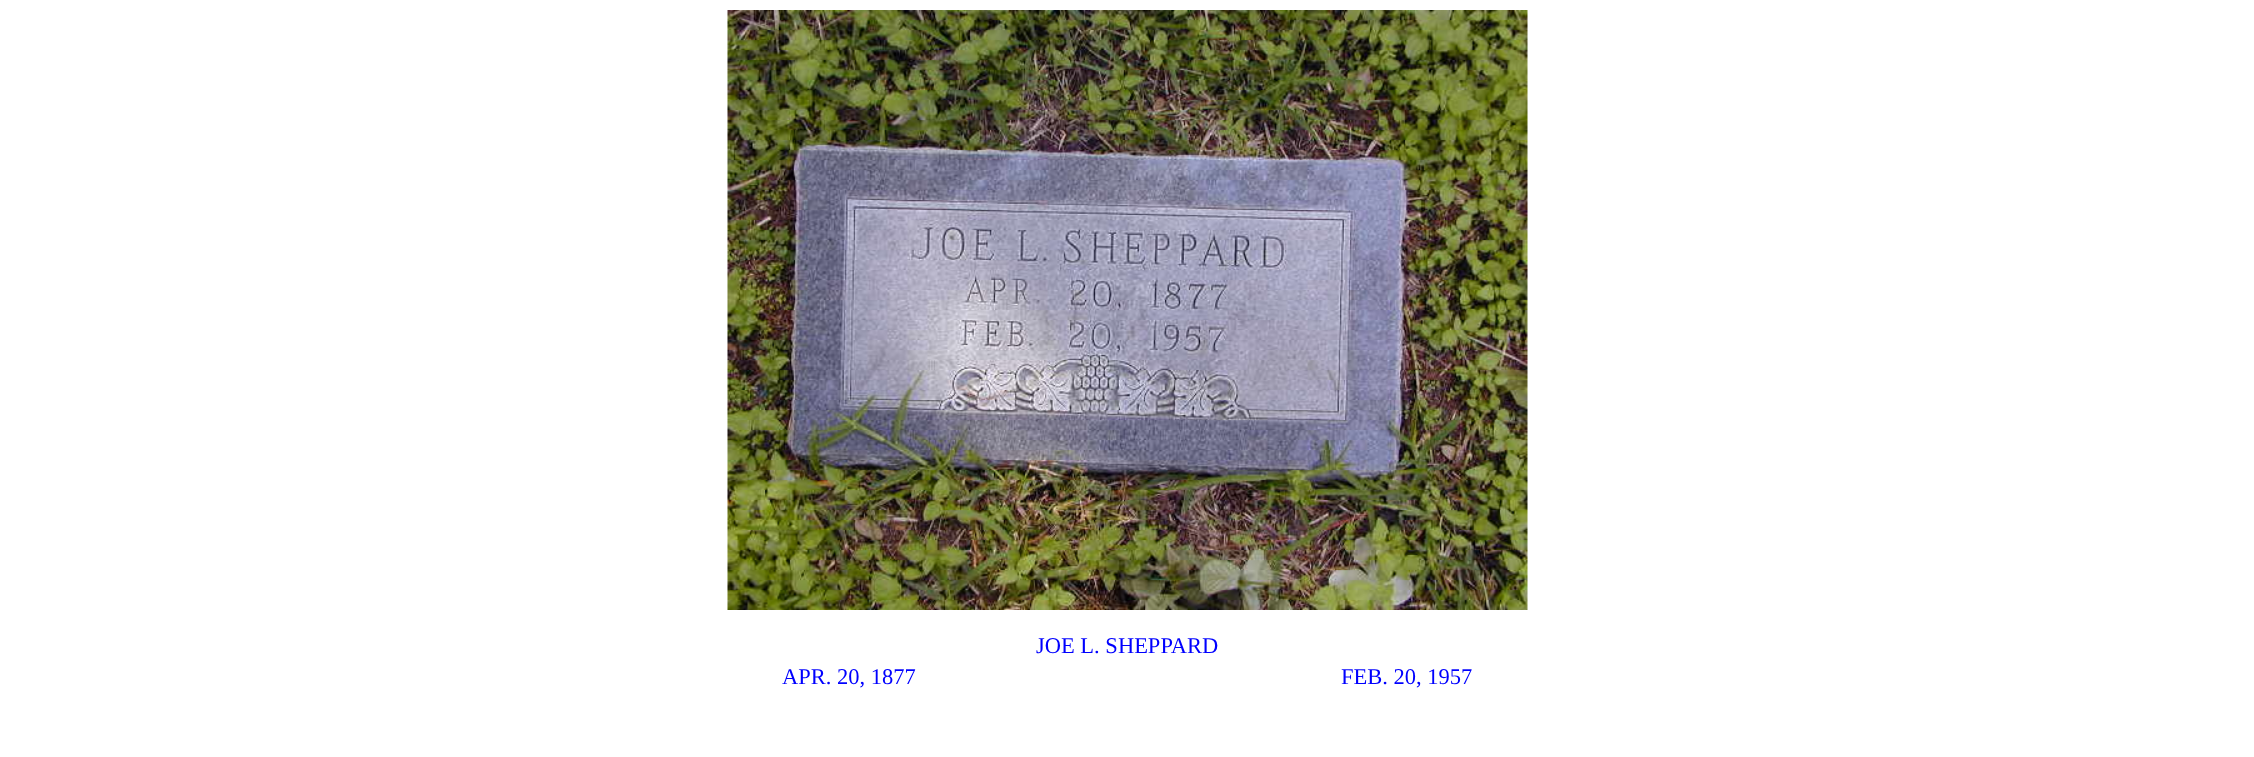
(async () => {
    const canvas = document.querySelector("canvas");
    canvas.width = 2254;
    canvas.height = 757;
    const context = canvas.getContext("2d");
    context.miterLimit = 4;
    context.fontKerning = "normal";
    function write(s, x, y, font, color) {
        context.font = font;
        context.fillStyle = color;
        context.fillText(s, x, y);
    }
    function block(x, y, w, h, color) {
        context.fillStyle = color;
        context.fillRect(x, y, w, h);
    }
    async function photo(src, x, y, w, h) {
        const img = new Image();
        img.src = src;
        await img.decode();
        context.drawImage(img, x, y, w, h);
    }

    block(0, 0, 2254, 757, "rgb(255, 255, 255)");
    await photo("media/1.png", 727, 10, 801, 600);
    write("JOE L. SHEPPARD", 1036, 653, "22.5px Liberation Serif", "rgb(0, 0, 255)");
    write("APR. 20, 1877", 782, 684, "22.5px Liberation Serif", "rgb(0, 0, 255)");
    write("FEB. 20, 1957", 1341, 684, "22.5px Liberation Serif", "rgb(0, 0, 255)");
})();
